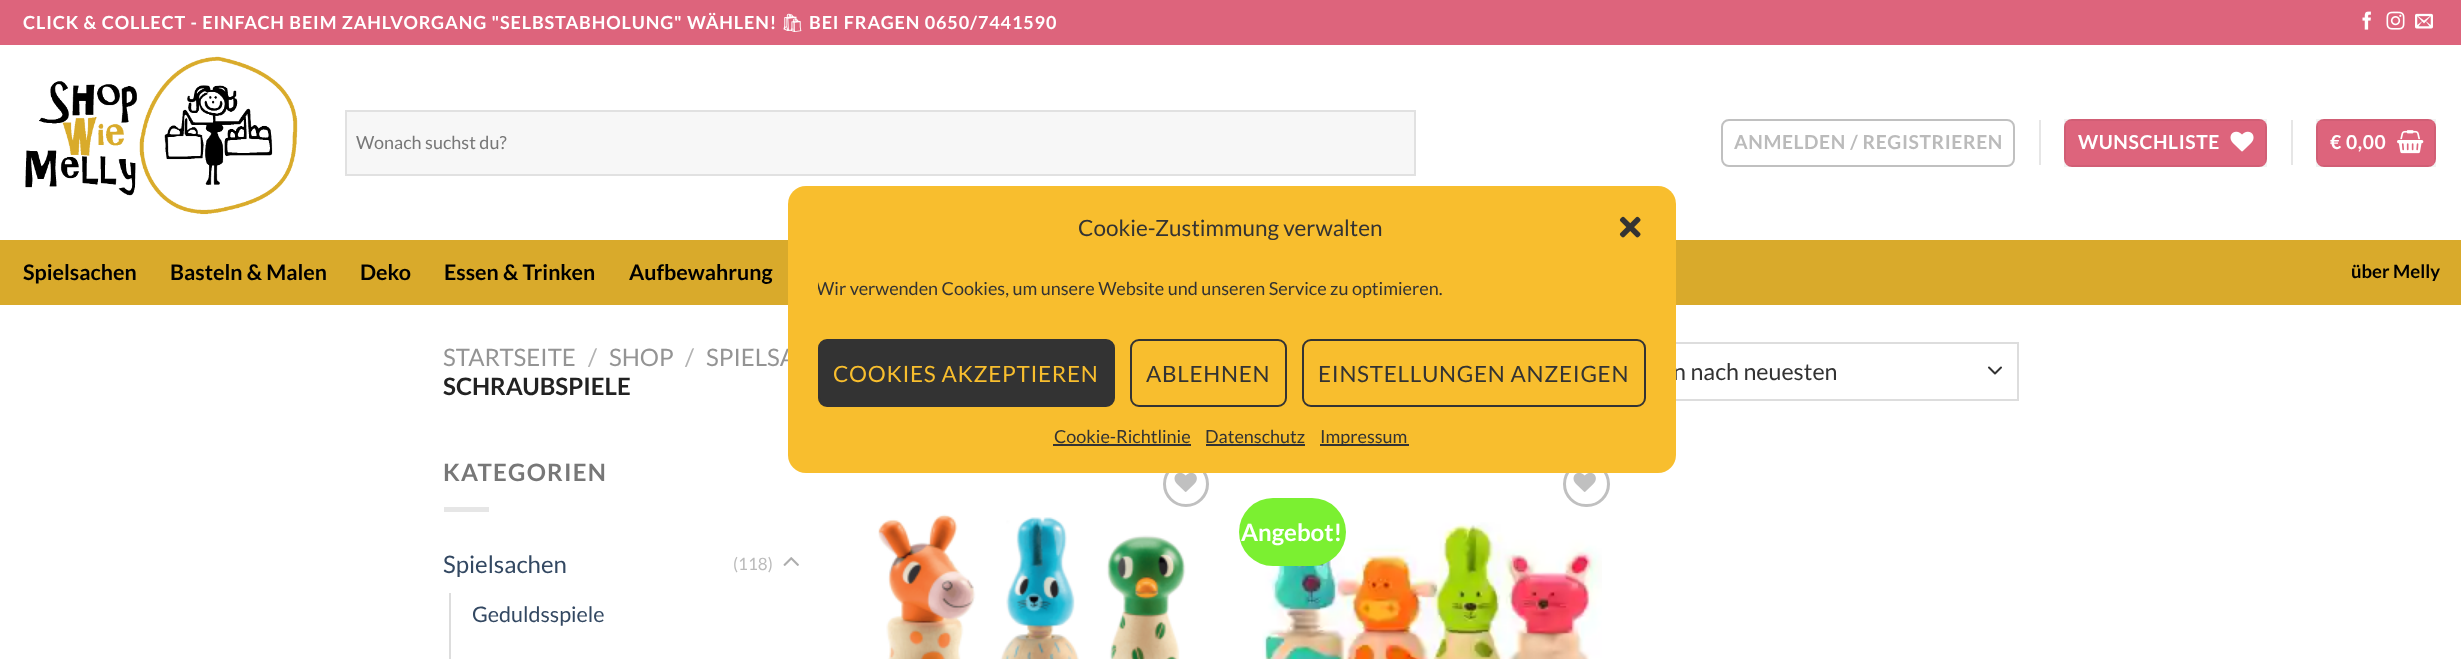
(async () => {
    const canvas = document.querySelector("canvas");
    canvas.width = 2461;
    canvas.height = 659;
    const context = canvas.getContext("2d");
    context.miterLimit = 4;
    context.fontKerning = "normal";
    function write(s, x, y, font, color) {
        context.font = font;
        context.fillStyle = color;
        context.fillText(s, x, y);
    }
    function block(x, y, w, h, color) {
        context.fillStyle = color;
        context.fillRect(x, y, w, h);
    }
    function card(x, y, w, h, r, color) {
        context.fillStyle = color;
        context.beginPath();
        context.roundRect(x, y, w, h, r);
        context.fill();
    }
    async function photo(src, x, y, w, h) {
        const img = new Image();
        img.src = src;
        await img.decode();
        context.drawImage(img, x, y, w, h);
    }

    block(0, 0, 2461, 659, "rgb(255, 255, 255)");
    block(0, 0, 2461, 45, "rgb(221, 100, 124)");
    context.letterSpacing = "0.9px";
    write("CLICK & COLLECT - EINFACH BEIM ZAHLVORGANG \"SELBSTABHOLUNG\" WÄHLEN!", 23, 29, "bold 18px Lato", "rgb(255, 255, 255)");
    write("🛍", 781, 29, "bold 18px Noto Emoji", "rgb(255, 255, 255)");
    write("BEI FRAGEN 0650/7441590", 809, 29, "bold 18px Lato", "rgb(255, 255, 255)");
    await photo("media/1.png", 2362, 11, 9, 19);
    await photo("media/2.png", 2386, 11, 19, 19);
    await photo("media/3.png", 2415, 13, 18, 16);
    await photo("media/4.png", 25, 56, 273, 159);
    context.fillStyle = "rgb(247, 247, 247)";
    context.beginPath();
    context.rect(346, 111, 1069, 64);
    context.fill();
    context.strokeStyle = "rgb(225, 225, 225)";
    context.lineWidth = 2;
    context.stroke();
    context.letterSpacing = "0px";
    write("Wonach suchst du?", 356, 149, "18px Lato", "rgb(119, 119, 119)");
    context.beginPath();
    context.roundRect(1722, 120, 292, 46, 7);
    context.strokeStyle = "rgb(192, 192, 192)";
    context.stroke();
    context.letterSpacing = "0.6px";
    write("ANMELDEN / REGISTRIEREN", 1734, 149, "bold 19.25px Lato", "rgb(187, 187, 187)");
    block(2039, 120, 2, 45, "rgb(230, 230, 230)");
    card(2064, 119, 203, 48, 8, "rgb(221, 100, 124)");
    context.strokeStyle = "rgba(0, 0, 0, 0.05)";
    context.strokeRect(2065, 120, 201, 46);
    write("WUNSCHLISTE", 2078, 149, "bold 19.25px Lato", "rgb(255, 255, 255)");
    await photo("media/5.png", 2230, 131, 24, 21);
    block(2291, 120, 2, 45, "rgb(230, 230, 230)");
    card(2316, 119, 120, 48, 8, "rgb(221, 100, 124)");
    context.strokeRect(2317, 120, 118, 46);
    write("€ 0,00", 2330, 149, "bold 19.25px Lato", "rgb(255, 255, 255)");
    await photo("media/6.png", 2397, 130, 27, 24);
    block(0, 240, 2461, 65, "rgb(217, 170, 43)");
    context.letterSpacing = "0px";
    write("Spielsachen", 23, 280, "bold 21.5px Lato", "rgb(0, 0, 0)");
    write("Basteln & Malen", 170, 280, "bold 21.5px Lato", "rgb(0, 0, 0)");
    write("Deko", 360, 280, "bold 21.5px Lato", "rgb(0, 0, 0)");
    write("Essen & Trinken", 444, 280, "bold 21.5px Lato", "rgb(0, 0, 0)");
    write("Aufbewahrung", 629, 280, "bold 21.5px Lato", "rgb(0, 0, 0)");
    write("über Melly", 2351, 278, "bold 18.5px Lato", "rgb(0, 0, 0)");
    write("STARTSEITE", 443, 366, "24px Lato", "rgb(148, 148, 148)");
    write("/", 588, 366, "24px Lato", "rgb(178, 178, 178)");
    write("SHOP", 609, 366, "24px Lato", "rgb(148, 148, 148)");
    write("/", 685, 366, "24px Lato", "rgb(178, 178, 178)");
    write("SPIELSA", 706, 366, "24px Lato", "rgb(148, 148, 148)");
    write("SCHRAUBSPIELE", 443, 395, "bold 24px Lato", "rgb(34, 34, 34)");
    context.beginPath();
    context.moveTo(1989, 367.5);
    context.lineTo(1995, 373.5);
    context.lineTo(2001, 367.5);
    context.strokeStyle = "rgb(51, 51, 51)";
    context.lineCap = "round";
    context.lineJoin = "round";
    context.stroke();
    context.strokeStyle = "rgb(221, 221, 221)";
    context.lineJoin = "miter";
    context.strokeRect(1572, 343, 446, 57);
    write("n nach neuesten", 1673, 380, "23.25px Lato", "rgb(51, 51, 51)");
    context.letterSpacing = "1.25px";
    write("KATEGORIEN", 443, 481, "bold 24px Lato", "rgb(119, 119, 119)");
    block(444, 507, 45, 5, "rgb(230, 230, 230)");
    context.letterSpacing = "0px";
    write("Spielsachen", 443, 573, "24px Lato", "rgb(51, 72, 98)");
    write("(118)", 733, 570, "17px Lato", "rgb(187, 187, 187)");
    await photo("media/7.png", 783, 557, 16, 9);
    block(449, 593, 2, 66, "rgb(221, 221, 221)");
    write("Geduldsspiele", 472, 622, "21.5px Lato", "rgb(51, 72, 98)");
    context.beginPath();
    context.arc(1186, 484, 21.5, 0, Math.PI * 2);
    context.strokeStyle = "rgb(192, 192, 192)";
    context.lineWidth = 3;
    context.stroke();
    await photo("media/8.png", 1174, 473, 23, 19);
    await photo("media/9.png", 878, 514, 308, 145);
    context.beginPath();
    context.roundRect(1564.5, 462.5, 44, 43, 21.5);
    context.stroke();
    await photo("media/8.png", 1573, 473, 23, 19);
    await photo("media/10.png", 1262, 522, 340, 137);
    card(1239, 498, 107, 68, 34, "rgb(123, 240, 49)");
    write("Angebot!", 1241, 541, "bold 24px Lato", "rgb(255, 255, 255)");
    card(788, 186, 888, 287, 18, "rgb(248, 190, 46)");
    write("Cookie-Zustimmung verwalten", 1078, 236, "22.5px Lato", "rgb(51, 51, 51)");
    await photo("media/11.png", 1619, 216, 22, 22);
    context.save();
    context.beginPath();
    context.rect(818, 275, 828, 34);
    context.clip();
    write("Wir verwenden Cookies, um unsere Website und unseren Service zu optimieren.", 816, 295, "18px Lato", "rgb(51, 51, 51)");
    context.restore();
    context.beginPath();
    context.roundRect(819, 340, 295, 66, 8);
    context.fill();
    context.strokeStyle = "rgb(51, 51, 51)";
    context.lineWidth = 2;
    context.stroke();
    context.letterSpacing = "0.7px";
    write("COOKIES AKZEPTIEREN", 833, 382, "22.5px Lato", "rgb(248, 190, 46)");
    context.beginPath();
    context.roundRect(1131, 340, 155, 66, 8);
    context.stroke();
    write("ABLEHNEN", 1146, 382, "22.5px Lato", "rgb(51, 51, 51)");
    context.beginPath();
    context.roundRect(1303, 340, 342, 66, 8);
    context.stroke();
    write("EINSTELLUNGEN ANZEIGEN", 1318, 382, "22.5px Lato", "rgb(51, 51, 51)");
    context.letterSpacing = "0px";
    write("Cookie-Richtlinie", 1054, 443, "18px Lato", "rgb(51, 51, 51)");
    block(1053, 444, 138, 2, "rgb(51, 51, 51)");
    write("Datenschutz", 1205, 443, "18px Lato", "rgb(51, 51, 51)");
    block(1206, 444, 99, 2, "rgb(51, 51, 51)");
    block(1320, 444, 89, 2, "rgb(51, 51, 51)");
    write("Impressum", 1320, 443, "18px Lato", "rgb(51, 51, 51)");
})();
